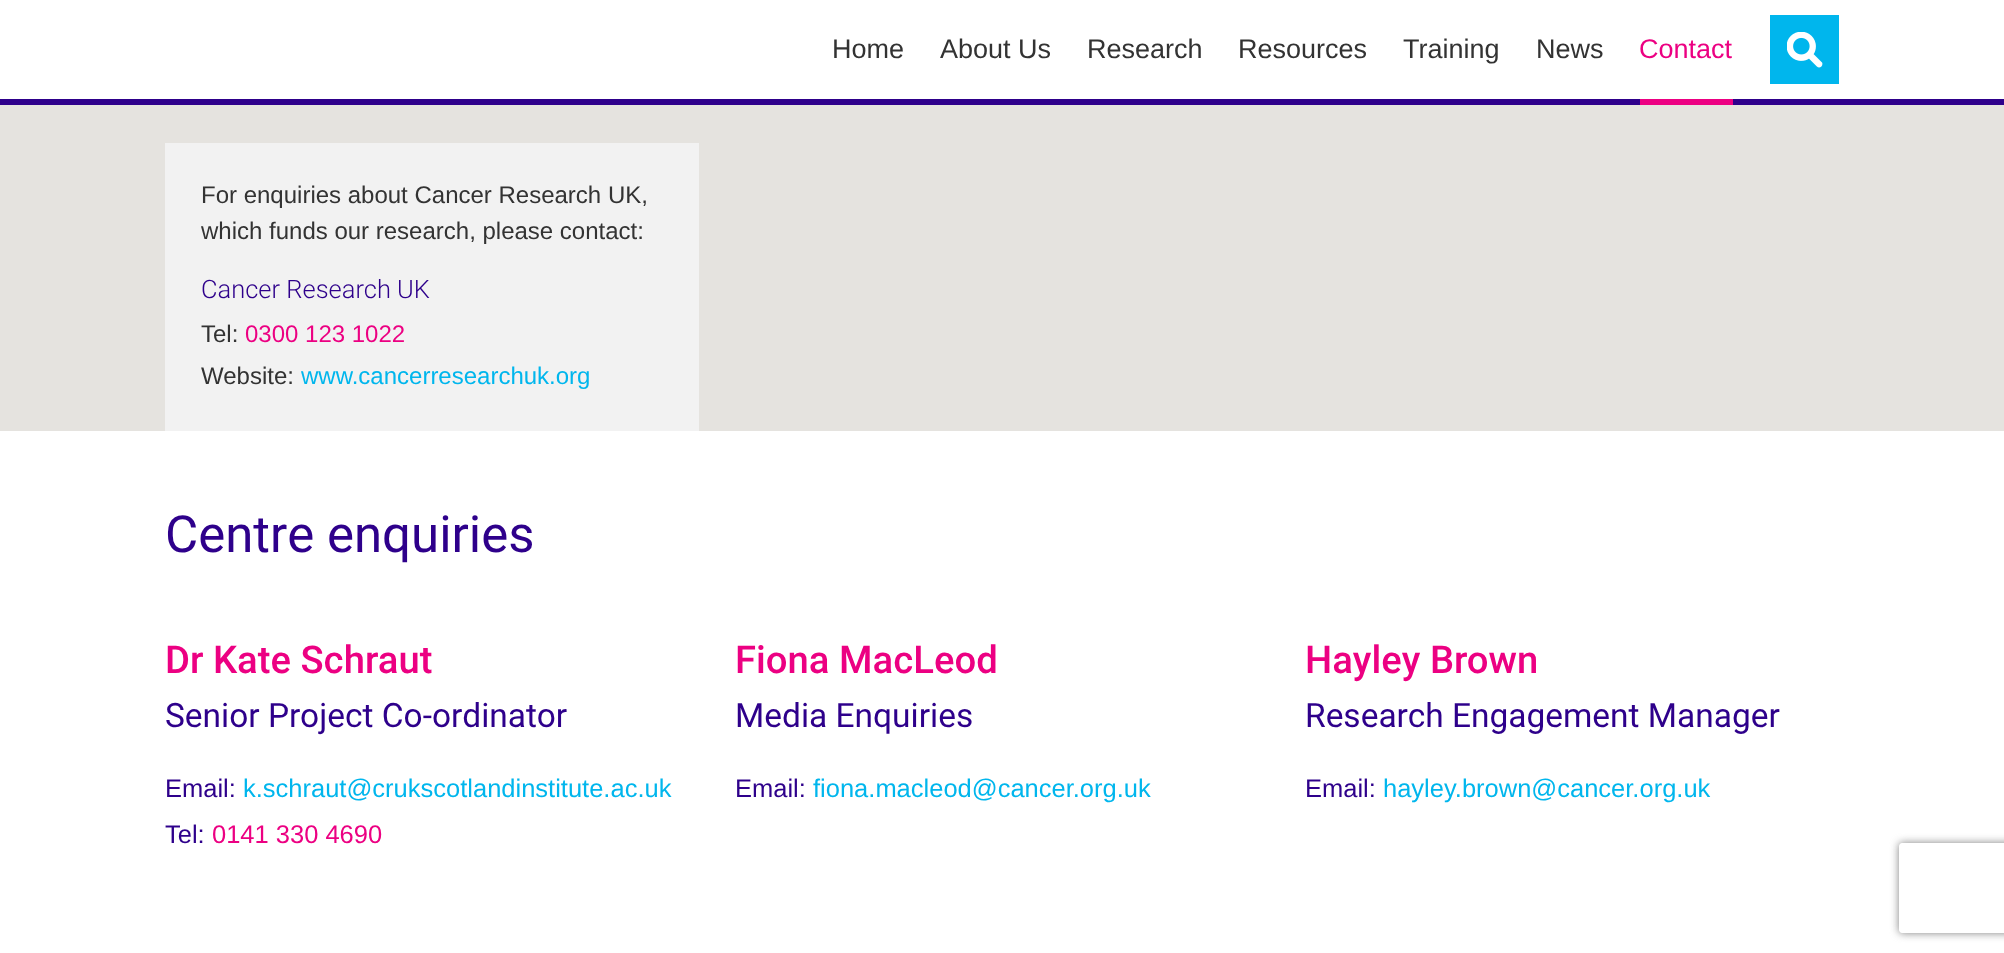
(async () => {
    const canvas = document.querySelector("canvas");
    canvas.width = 2004;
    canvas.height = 953;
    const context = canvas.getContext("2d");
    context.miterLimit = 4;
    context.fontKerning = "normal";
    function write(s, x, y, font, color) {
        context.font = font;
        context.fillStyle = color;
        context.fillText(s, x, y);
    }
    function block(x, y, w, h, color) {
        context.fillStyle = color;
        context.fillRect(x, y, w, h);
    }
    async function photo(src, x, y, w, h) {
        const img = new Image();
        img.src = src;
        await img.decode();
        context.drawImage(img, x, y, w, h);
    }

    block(0, 0, 2004, 953, "rgb(255, 255, 255)");
    write("Home", 832, 58, "27px Liberation Sans", "rgb(51, 51, 51)");
    write("About Us", 940, 58, "27px Liberation Sans", "rgb(51, 51, 51)");
    write("Research", 1087, 58, "27px Liberation Sans", "rgb(51, 51, 51)");
    write("Resources", 1238, 58, "27px Liberation Sans", "rgb(51, 51, 51)");
    write("Training", 1403, 58, "27px Liberation Sans", "rgb(51, 51, 51)");
    write("News", 1536, 58, "27px Liberation Sans", "rgb(51, 51, 51)");
    write("Contact", 1639, 58, "27px Liberation Sans", "rgb(236, 0, 130)");
    block(0, 99, 2004, 6, "rgb(46, 0, 139)");
    block(1640, 99, 93, 6, "rgb(236, 0, 130)");
    block(1770, 15, 69, 69, "rgb(0, 182, 237)");
    await photo("media/1.png", 1787, 32, 36, 36);
    block(0, 105, 2004, 326, "rgb(229, 227, 223)");
    block(165, 143, 534, 288, "rgb(242, 242, 242)");
    write("For enquiries about Cancer Research UK,", 201, 203, "24px Liberation Sans", "rgb(51, 51, 51)");
    write("which funds our research, please contact:", 201, 239, "24px Liberation Sans", "rgb(51, 51, 51)");
    write("Cancer Research UK", 201, 298, "300 25.5px Roboto", "rgb(46, 0, 139)");
    write("Tel:", 201, 342, "24px Liberation Sans", "rgb(51, 51, 51)");
    write("0300 123 1022", 245, 342, "24px Liberation Sans", "rgb(236, 0, 130)");
    write("Website:", 201, 384, "24px Liberation Sans", "rgb(51, 51, 51)");
    write("www.cancerresearchuk.org", 301, 384, "24px Liberation Sans", "rgb(0, 182, 237)");
    write("Centre enquiries", 165, 552, "51px Roboto", "rgb(46, 0, 139)");
    write("Dr Kate Schraut", 165, 673, "500 38.25px Roboto", "rgb(236, 0, 130)");
    write("Senior Project Co-ordinator", 165, 727, "33.5px Roboto", "rgb(46, 0, 139)");
    write("Email:", 165, 797, "25.5px Liberation Sans", "rgb(46, 0, 139)");
    write("k.schraut@crukscotlandinstitute.ac.uk", 243, 797, "25.5px Liberation Sans", "rgb(0, 182, 237)");
    write("Tel:", 165, 843, "25.5px Liberation Sans", "rgb(46, 0, 139)");
    write("0141 330 4690", 212, 843, "25.5px Liberation Sans", "rgb(236, 0, 130)");
    write("Fiona MacLeod", 735, 673, "500 38.25px Roboto", "rgb(236, 0, 130)");
    write("Media Enquiries", 735, 727, "33.5px Roboto", "rgb(46, 0, 139)");
    write("Email:", 735, 797, "25.5px Liberation Sans", "rgb(46, 0, 139)");
    write("fiona.macleod@cancer.org.uk", 813, 797, "25.5px Liberation Sans", "rgb(0, 182, 237)");
    write("Hayley Brown", 1305, 673, "500 38.25px Roboto", "rgb(236, 0, 130)");
    write("Research Engagement Manager", 1305, 727, "33.5px Roboto", "rgb(46, 0, 139)");
    write("Email:", 1305, 797, "25.5px Liberation Sans", "rgb(46, 0, 139)");
    write("hayley.brown@cancer.org.uk", 1383, 797, "25.5px Liberation Sans", "rgb(0, 182, 237)");
    context.save();
    context.beginPath();
    context.moveTo(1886, 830);
    context.lineTo(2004, 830);
    context.lineTo(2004, 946);
    context.lineTo(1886, 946);
    context.closePath();
    context.moveTo(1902, 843);
    context.lineTo(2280, 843);
    context.bezierCurveTo(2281.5, 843, 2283, 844.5, 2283, 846);
    context.lineTo(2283, 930);
    context.bezierCurveTo(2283, 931.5, 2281.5, 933, 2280, 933);
    context.lineTo(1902, 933);
    context.bezierCurveTo(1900.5, 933, 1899, 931.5, 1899, 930);
    context.lineTo(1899, 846);
    context.bezierCurveTo(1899, 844.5, 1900.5, 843, 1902, 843);
    context.closePath();
    context.clip("evenodd");
    context.fillStyle = "rgb(128, 128, 128)";
    context.filter = "blur(4px)";
    context.beginPath();
    context.roundRect(1899, 843, 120, 90, 3);
    context.fill();
    context.filter = "none";
    context.restore();
})();
